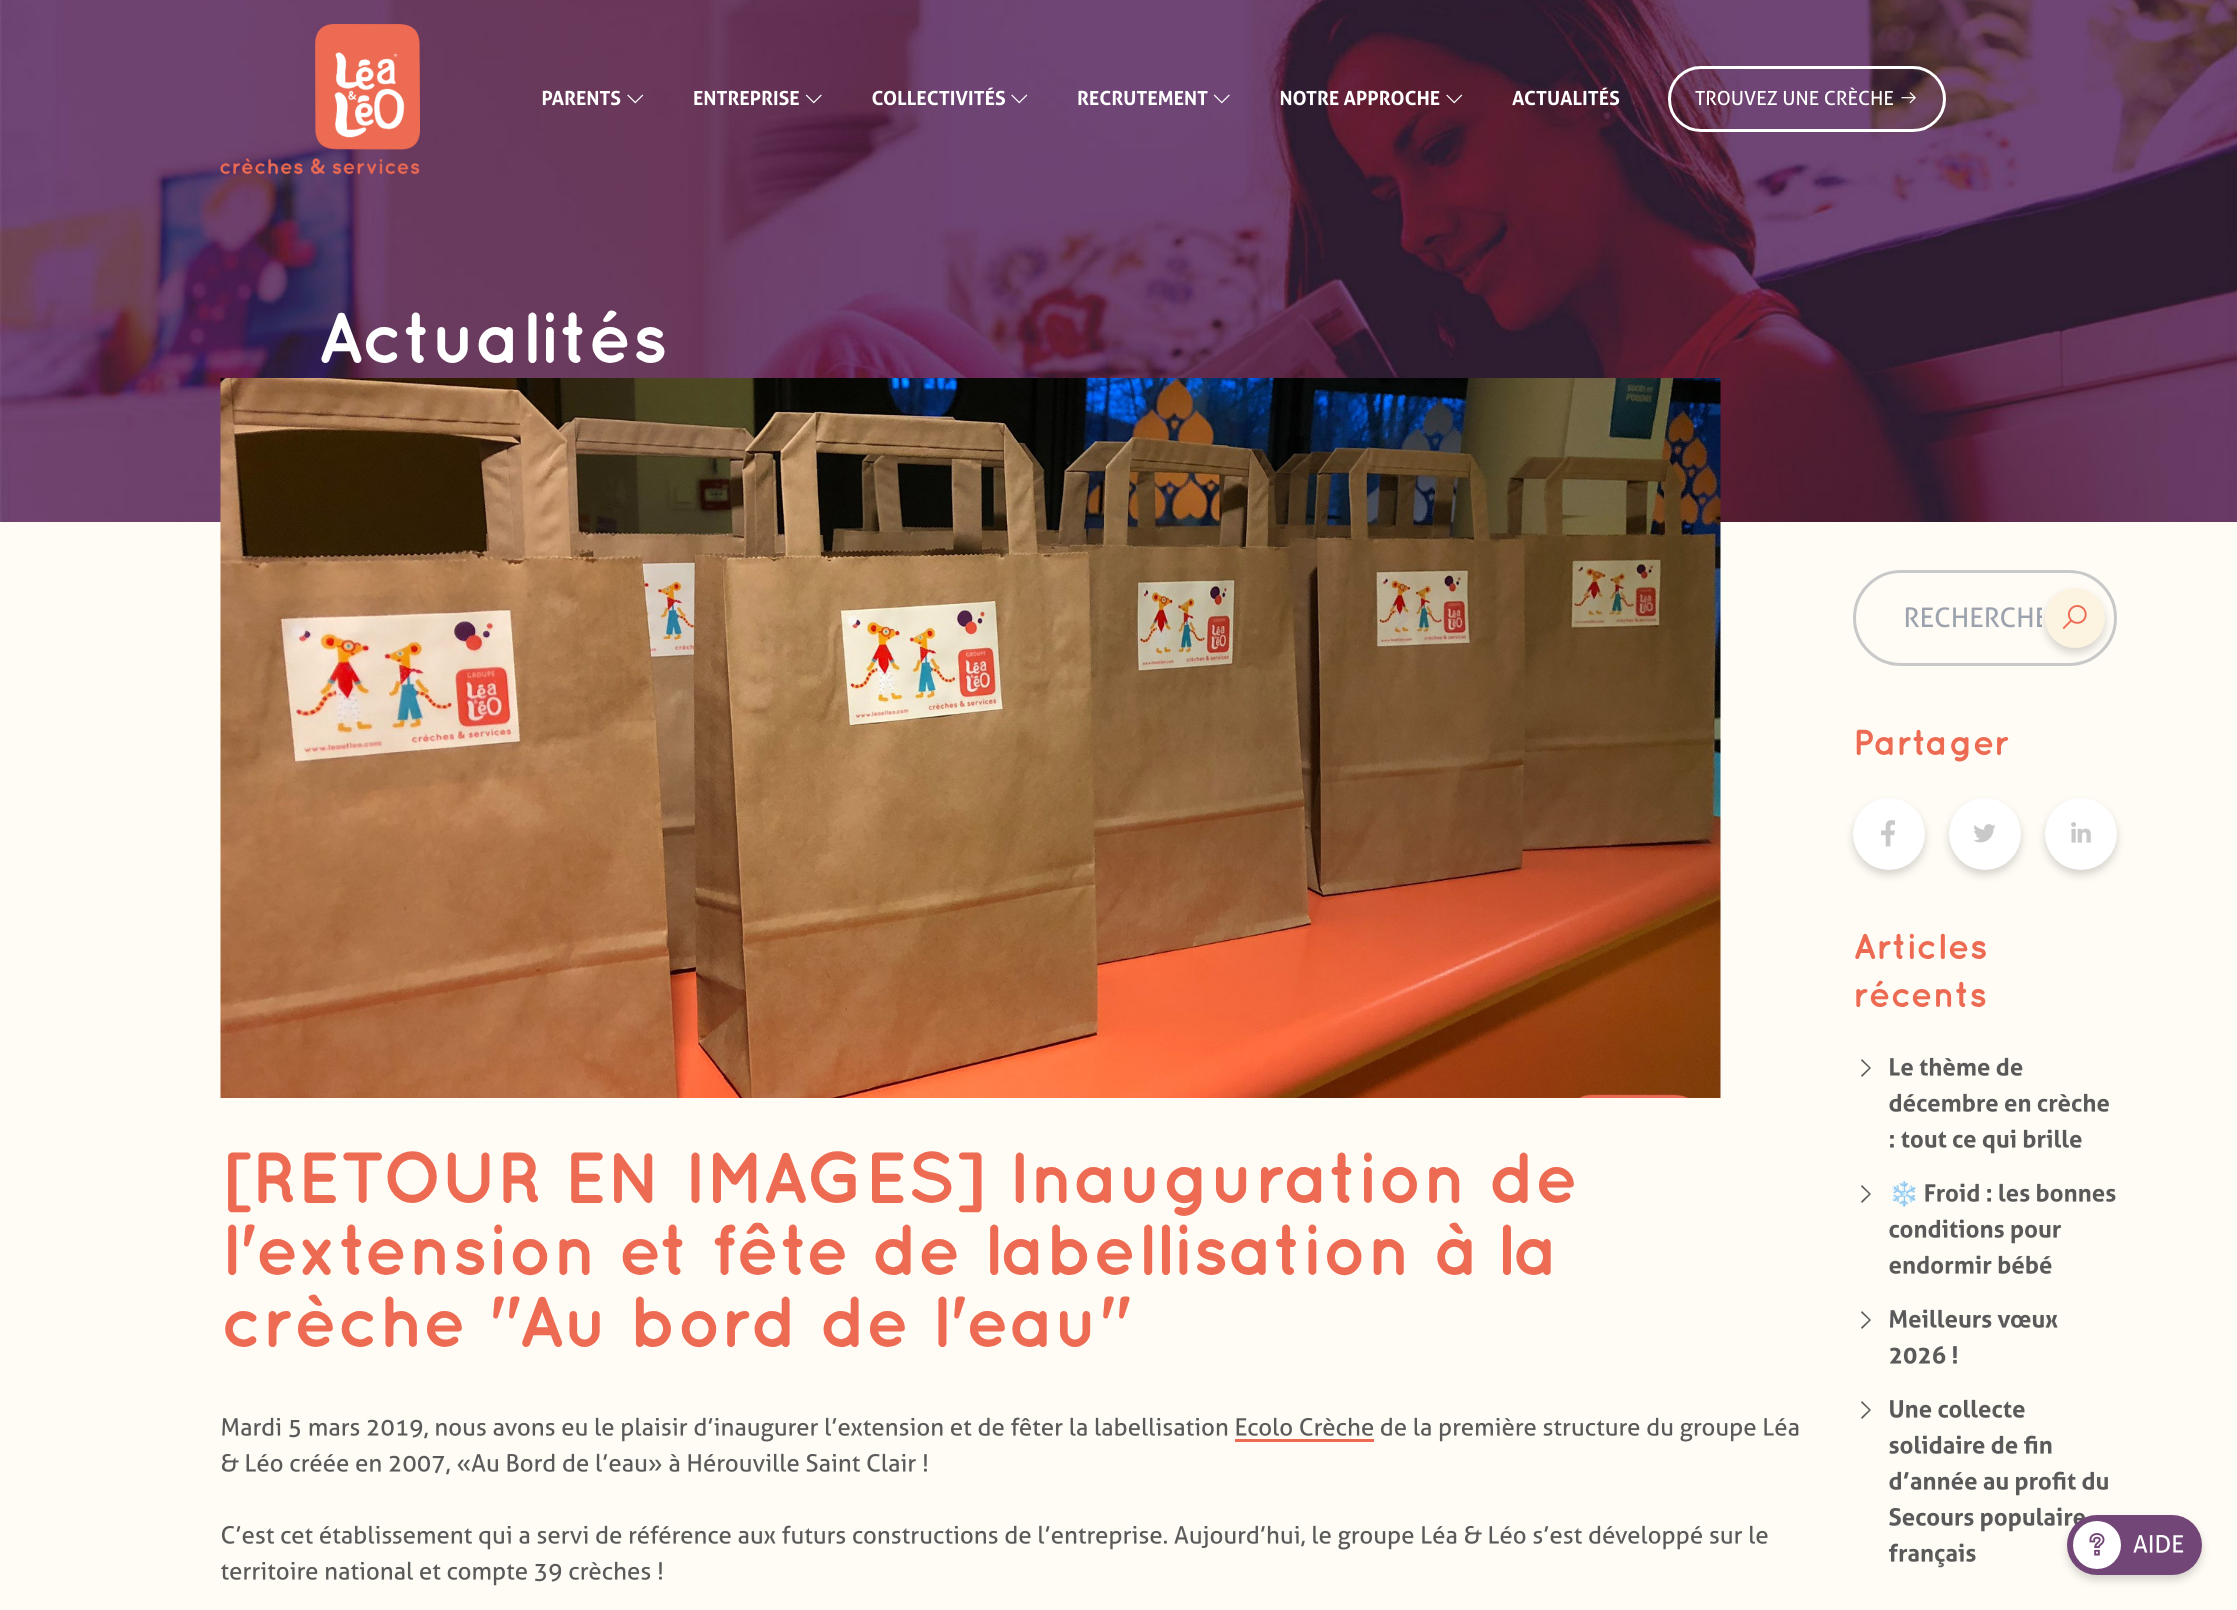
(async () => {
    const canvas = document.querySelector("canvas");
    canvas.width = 2237;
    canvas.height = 1610;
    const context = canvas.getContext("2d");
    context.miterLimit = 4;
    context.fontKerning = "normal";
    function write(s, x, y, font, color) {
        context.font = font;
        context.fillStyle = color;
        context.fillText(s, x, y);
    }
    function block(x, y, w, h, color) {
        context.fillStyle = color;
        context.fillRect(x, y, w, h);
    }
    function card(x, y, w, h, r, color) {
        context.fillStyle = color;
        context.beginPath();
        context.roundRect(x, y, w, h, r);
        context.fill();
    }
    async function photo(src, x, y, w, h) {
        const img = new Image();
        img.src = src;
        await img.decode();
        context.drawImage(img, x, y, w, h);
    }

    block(0, 0, 2237, 1610, "rgb(255, 252, 245)");
    await photo("media/15.png", 0, 0, 2237, 522);
    await photo("media/1.png", 220, 24, 200, 151);
    await photo("media/2.png", 542, 90, 79, 16);
    await photo("media/3.png", 627, 94, 17, 10);
    await photo("media/4.png", 694, 90, 105, 16);
    await photo("media/5.png", 805, 94, 17, 10);
    await photo("media/6.png", 872, 87, 133, 19);
    await photo("media/7.png", 1011, 94, 17, 10);
    await photo("media/8.png", 1078, 90, 130, 16);
    await photo("media/9.png", 1213, 94, 17, 10);
    await photo("media/10.png", 1280, 90, 160, 16);
    await photo("media/11.png", 1446, 94, 17, 10);
    await photo("media/12.png", 1512, 87, 108, 19);
    context.beginPath();
    context.roundRect(1669.5, 67.5, 275, 63, 31.5);
    context.strokeStyle = "rgb(255, 255, 255)";
    context.lineWidth = 3;
    context.stroke();
    await photo("media/13.png", 1695, 87, 198, 19);
    await photo("media/14.png", 1901, 92, 15, 12);
    write("Actualités", 317, 363, "bold 72px Quicksand", "rgb(255, 255, 255)");
    await photo("media/16.png", 220, 378, 1501, 720);
    write("[RETOUR EN IMAGES] Inauguration de", 221, 1203, "bold 72px Quicksand", "rgb(237, 107, 83)");
    write("l'extension et fête de labellisation à la", 221, 1275, "bold 72px Quicksand", "rgb(237, 107, 83)");
    write("crèche \"Au bord de l'eau\"", 221, 1347, "bold 72px Quicksand", "rgb(237, 107, 83)");
    await photo("media/17.png", 222, 1417, 1006, 25);
    await photo("media/18.png", 1236, 1417, 138, 19);
    await photo("media/19.png", 1380, 1417, 419, 25);
    block(1235, 1439, 139, 3, "rgb(237, 107, 83)");
    await photo("media/20.png", 221, 1453, 706, 22);
    await photo("media/21.png", 221, 1525, 1547, 25);
    await photo("media/22.png", 221, 1561, 441, 25);
    context.beginPath();
    context.roundRect(1854.5, 571.5, 261, 93, 46.5);
    context.strokeStyle = "rgb(201, 201, 201)";
    context.stroke();
    await photo("media/23.png", 1905, 607, 137, 21);
    context.fillStyle = "rgba(0, 0, 0, 0.16)";
    context.filter = "blur(4.5px)";
    context.beginPath();
    context.roundRect(2045, 593, 60, 60, 30);
    context.fill();
    context.filter = "none";
    context.fillStyle = "rgb(252, 243, 225)";
    context.beginPath();
    context.arc(2075, 618, 30, 0, Math.PI * 2);
    context.fill();
    await photo("media/24.png", 2062, 605, 25, 24);
    write("Partager", 1853, 755, "bold 36px Quicksand", "rgb(237, 107, 83)");
    context.fillStyle = "rgba(0, 0, 0, 0.16)";
    context.filter = "blur(4.5px)";
    context.beginPath();
    context.roundRect(1853, 803, 72, 72, 36);
    context.fill();
    context.filter = "none";
    context.fillStyle = "rgb(255, 255, 255)";
    context.beginPath();
    context.arc(1889, 834, 36, 0, Math.PI * 2);
    context.fill();
    await photo("media/25.png", 1881, 820, 14, 27);
    context.fillStyle = "rgba(0, 0, 0, 0.16)";
    context.filter = "blur(4.5px)";
    context.beginPath();
    context.roundRect(1949, 803, 72, 72, 36);
    context.fill();
    context.filter = "none";
    context.fillStyle = "rgb(255, 255, 255)";
    context.beginPath();
    context.arc(1985, 834, 36, 0, Math.PI * 2);
    context.fill();
    await photo("media/26.png", 1973, 824, 23, 19);
    context.fillStyle = "rgba(0, 0, 0, 0.16)";
    context.filter = "blur(4.5px)";
    context.beginPath();
    context.roundRect(2045, 803, 72, 72, 36);
    context.fill();
    context.filter = "none";
    context.fillStyle = "rgb(255, 255, 255)";
    context.beginPath();
    context.arc(2081, 834, 36, 0, Math.PI * 2);
    context.fill();
    await photo("media/27.png", 2071, 822, 20, 21);
    write("Articles", 1853, 959, "bold 36px Quicksand", "rgb(237, 107, 83)");
    write("récents", 1853, 1007, "bold 36px Quicksand", "rgb(237, 107, 83)");
    context.fillStyle = "rgb(90, 90, 90)";
    context.beginPath();
    context.moveTo(1862, 1059);
    context.lineTo(1861, 1060.5);
    context.lineTo(1869, 1068);
    context.lineTo(1861, 1075.5);
    context.lineTo(1862, 1077);
    context.lineTo(1871, 1068);
    context.closePath();
    context.fill();
    await photo("media/28.png", 1890, 1057, 133, 19);
    await photo("media/29.png", 1889, 1093, 220, 19);
    await photo("media/30.png", 1890, 1129, 192, 25);
    context.beginPath();
    context.moveTo(1862, 1185);
    context.lineTo(1861, 1186.5);
    context.lineTo(1869, 1194);
    context.lineTo(1861, 1201.5);
    context.lineTo(1862, 1203);
    context.lineTo(1871, 1194);
    context.closePath();
    context.fill();
    write("❄️", 1889, 1202, "24px Noto Color Emoji", "rgb(90, 90, 90)");
    await photo("media/31.png", 1925, 1183, 191, 19);
    await photo("media/32.png", 1889, 1219, 172, 25);
    await photo("media/33.png", 1889, 1255, 163, 19);
    context.beginPath();
    context.moveTo(1862, 1311);
    context.lineTo(1861, 1312.5);
    context.lineTo(1869, 1320);
    context.lineTo(1861, 1327.5);
    context.lineTo(1862, 1329);
    context.lineTo(1871, 1320);
    context.closePath();
    context.fill();
    await photo("media/34.png", 1890, 1309, 168, 19);
    await photo("media/35.png", 1889, 1346, 68, 18);
    context.beginPath();
    context.moveTo(1862, 1401);
    context.lineTo(1861, 1402.5);
    context.lineTo(1869, 1410);
    context.lineTo(1861, 1417.5);
    context.lineTo(1862, 1419);
    context.lineTo(1871, 1410);
    context.closePath();
    context.fill();
    await photo("media/36.png", 1890, 1399, 135, 19);
    await photo("media/37.png", 1889, 1435, 163, 19);
    await photo("media/38.png", 1889, 1471, 219, 25);
    await photo("media/39.png", 1889, 1507, 196, 25);
    await photo("media/40.png", 1888, 1543, 88, 25);
    context.fillStyle = "rgba(0, 0, 0, 0.16)";
    context.filter = "blur(4.5px)";
    context.beginPath();
    context.roundRect(2067, 1520, 135, 60, 30);
    context.fill();
    context.filter = "none";
    card(2067, 1515, 135, 60, 30, "rgb(114, 70, 119)");
    context.fillStyle = "rgb(255, 255, 255)";
    context.beginPath();
    context.arc(2097, 1545, 24, 0, Math.PI * 2);
    context.fill();
    await photo("media/41.png", 2089, 1533, 16, 23);
    await photo("media/42.png", 2133, 1535, 51, 18);
})();
